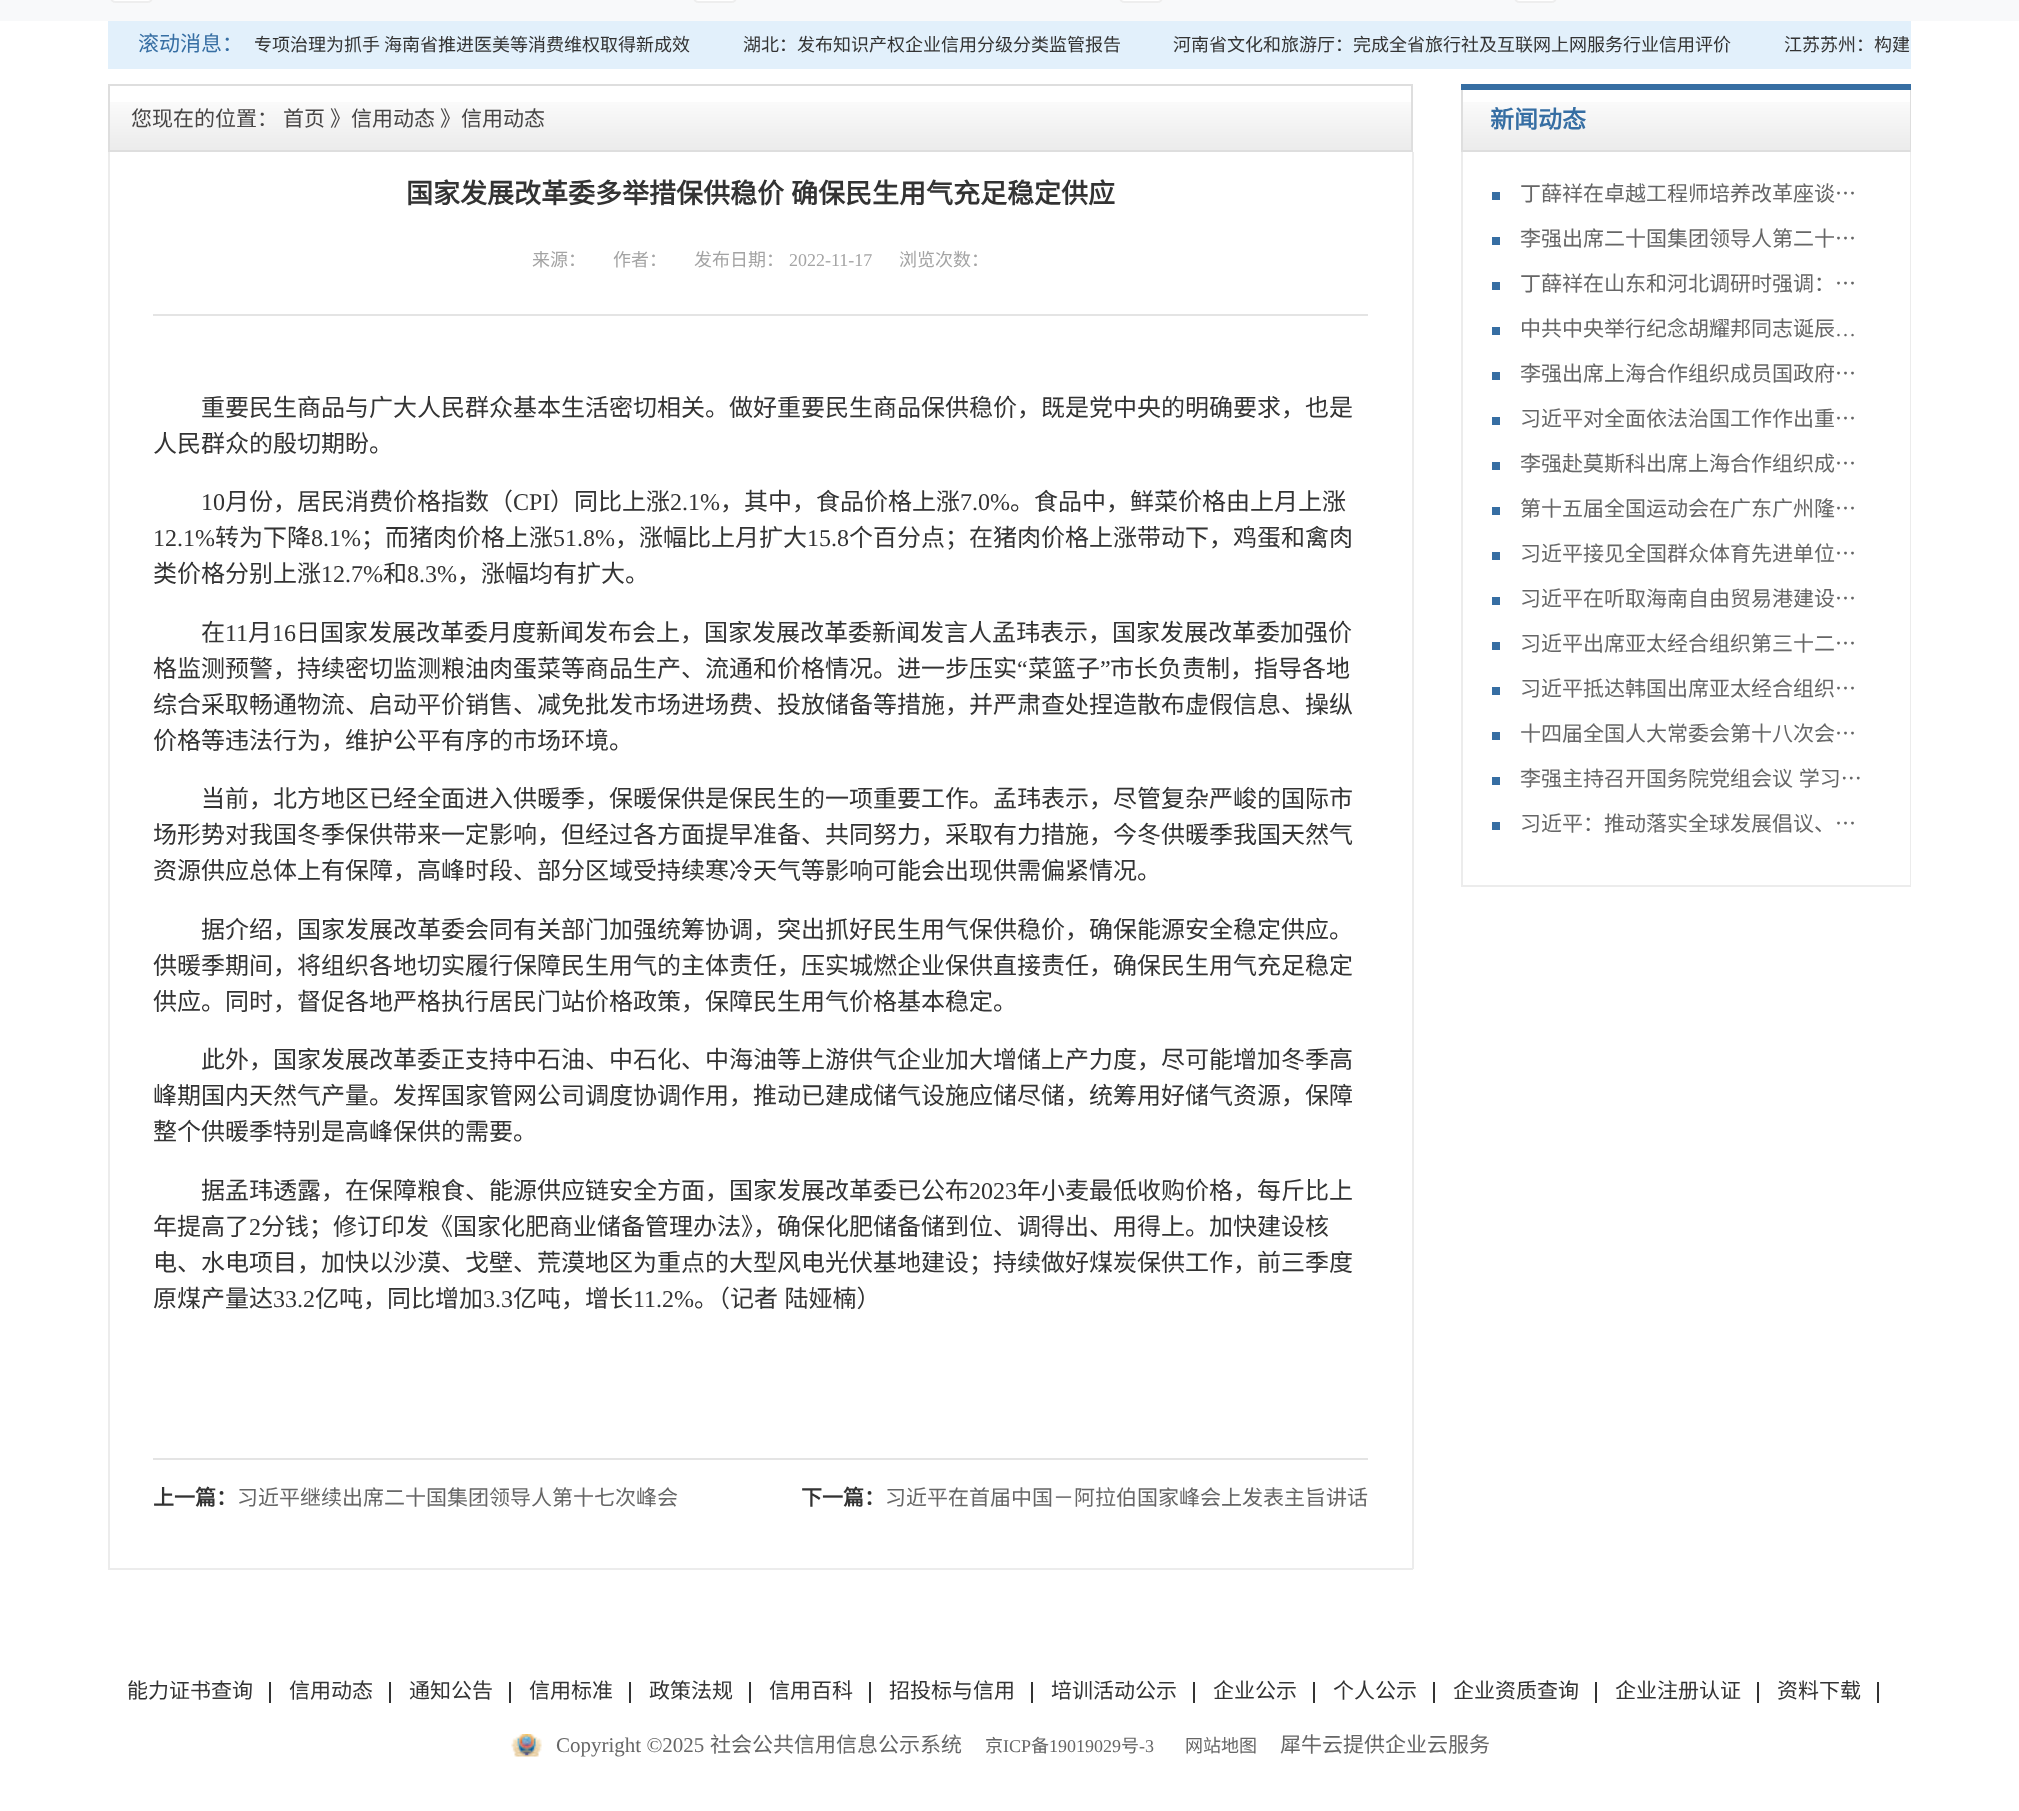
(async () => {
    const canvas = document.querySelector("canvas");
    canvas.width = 2019;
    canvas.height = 1811;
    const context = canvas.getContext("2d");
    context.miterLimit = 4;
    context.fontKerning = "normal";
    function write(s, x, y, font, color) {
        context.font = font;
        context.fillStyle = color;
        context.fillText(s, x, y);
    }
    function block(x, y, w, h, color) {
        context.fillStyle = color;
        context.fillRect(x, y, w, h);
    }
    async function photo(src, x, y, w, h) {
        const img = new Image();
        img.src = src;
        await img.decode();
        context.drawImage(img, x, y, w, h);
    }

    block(0, 0, 2019, 1811, "rgb(255, 255, 255)");
    block(0, 0, 2019, 21, "rgb(248, 249, 250)");
    context.fillStyle = "rgb(255, 255, 255)";
    context.beginPath();
    context.roundRect(111, -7, 41, 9, 5);
    context.fill();
    context.strokeStyle = "rgb(238, 238, 238)";
    context.lineWidth = 2;
    context.stroke();
    context.beginPath();
    context.roundRect(694, -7, 42, 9, 5);
    context.fill();
    context.stroke();
    context.beginPath();
    context.roundRect(1120, -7, 42, 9, 5);
    context.fill();
    context.stroke();
    context.beginPath();
    context.roundRect(1515, -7, 41, 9, 5);
    context.fill();
    context.stroke();
    block(108, 21, 1803, 48, "rgb(226, 240, 251)");
    write("滚动消息：", 138, 51, "21px Noto Sans CJK SC", "rgb(54, 110, 163)");
    write("专项治理为抓手 海南省推进医美等消费维权取得新成效", 254, 51, "18px Noto Sans CJK SC", "rgb(51, 51, 51)");
    write("湖北：发布知识产权企业信用分级分类监管报告", 743, 51, "18px Noto Sans CJK SC", "rgb(51, 51, 51)");
    write("河南省文化和旅游厅：完成全省旅行社及互联网上网服务行业信用评价", 1173, 51, "18px Noto Sans CJK SC", "rgb(51, 51, 51)");
    write("江苏苏州：构建", 1784, 51, "18px Noto Sans CJK SC", "rgb(51, 51, 51)");
    await photo("media/1.png", 110, 102, 1301, 48);
    context.strokeStyle = "rgb(222, 222, 222)";
    context.strokeRect(109, 85, 1303, 66);
    write("您现在的位置：", 131, 126, "21px Noto Sans CJK SC", "rgb(71, 69, 69)");
    write("首页", 283, 126, "21px Noto Sans CJK SC", "rgb(71, 69, 69)");
    write("》信用动态", 330, 126, "21px Noto Sans CJK SC", "rgb(71, 69, 69)");
    write("》信用动态", 440, 126, "21px Noto Sans CJK SC", "rgb(71, 69, 69)");
    block(1412, 152, 2, 1417, "rgb(236, 236, 236)");
    block(108, 1568, 1305, 2, "rgb(236, 236, 236)");
    block(108, 152, 2, 1417, "rgb(236, 236, 236)");
    context.wordSpacing = "1px";
    write("国家发展改革委多举措保供稳价 确保民生用气充足稳定供应", 406, 203, "bold 27px Noto Sans CJK SC", "rgb(51, 51, 51)");
    block(153, 314, 1215, 2, "rgb(228, 228, 228)");
    context.wordSpacing = "0px";
    write("来源：", 532, 266, "18px Noto Sans CJK SC", "rgb(164, 164, 164)");
    write("作者：", 613, 266, "18px Noto Sans CJK SC", "rgb(164, 164, 164)");
    write("发布日期：", 694, 266, "18px Noto Sans CJK SC", "rgb(164, 164, 164)");
    write("2022-11-17", 789, 266, "18px Liberation Serif", "rgb(164, 164, 164)");
    write("浏览次数：", 899, 266, "18px Noto Sans CJK SC", "rgb(164, 164, 164)");
    write("重要民生商品与广大人民群众基本生活密切相关。做好重要民生商品保供稳价，既是党中央的明确要求，也是", 201, 416, "24px Noto Sans CJK SC", "rgb(51, 51, 51)");
    write("人民群众的殷切期盼。", 153, 452, "24px Noto Sans CJK SC", "rgb(51, 51, 51)");
    write("10", 201, 510, "24px Liberation Serif", "rgb(51, 51, 51)");
    write("月份，居民消费价格指数（", 225, 510, "24px Noto Sans CJK SC", "rgb(51, 51, 51)");
    write("CPI", 513, 510, "24px Liberation Serif", "rgb(51, 51, 51)");
    write("）同比上涨", 550, 510, "24px Noto Sans CJK SC", "rgb(51, 51, 51)");
    write("2.1%", 670, 510, "24px Liberation Serif", "rgb(51, 51, 51)");
    write("，其中，食品价格上涨", 720, 510, "24px Noto Sans CJK SC", "rgb(51, 51, 51)");
    write("7.0%", 960, 510, "24px Liberation Serif", "rgb(51, 51, 51)");
    write("。食品中，鲜菜价格由上月上涨", 1010, 510, "24px Noto Sans CJK SC", "rgb(51, 51, 51)");
    write("12.1%", 153, 546, "24px Liberation Serif", "rgb(51, 51, 51)");
    write("转为下降", 215, 546, "24px Noto Sans CJK SC", "rgb(51, 51, 51)");
    write("8.1%", 311, 546, "24px Liberation Serif", "rgb(51, 51, 51)");
    write("；而猪肉价格上涨", 361, 546, "24px Noto Sans CJK SC", "rgb(51, 51, 51)");
    write("51.8%", 553, 546, "24px Liberation Serif", "rgb(51, 51, 51)");
    write("，涨幅比上月扩大", 615, 546, "24px Noto Sans CJK SC", "rgb(51, 51, 51)");
    write("15.8", 807, 546, "24px Liberation Serif", "rgb(51, 51, 51)");
    write("个百分点；在猪肉价格上涨带动下，鸡蛋和禽肉", 849, 546, "24px Noto Sans CJK SC", "rgb(51, 51, 51)");
    write("类价格分别上涨", 153, 582, "24px Noto Sans CJK SC", "rgb(51, 51, 51)");
    write("12.7%", 321, 582, "24px Liberation Serif", "rgb(51, 51, 51)");
    write("和", 383, 582, "24px Noto Sans CJK SC", "rgb(51, 51, 51)");
    write("8.3%", 407, 582, "24px Liberation Serif", "rgb(51, 51, 51)");
    write("，涨幅均有扩大。", 457, 582, "24px Noto Sans CJK SC", "rgb(51, 51, 51)");
    write("在", 201, 641, "24px Noto Sans CJK SC", "rgb(51, 51, 51)");
    write("11", 225, 641, "24px Liberation Serif", "rgb(51, 51, 51)");
    write("月", 248, 641, "24px Noto Sans CJK SC", "rgb(51, 51, 51)");
    write("16", 272, 641, "24px Liberation Serif", "rgb(51, 51, 51)");
    write("日国家发展改革委月度新闻发布会上，国家发展改革委新闻发言人孟玮表示，国家发展改革委加强价", 296, 641, "24px Noto Sans CJK SC", "rgb(51, 51, 51)");
    write("格监测预警，持续密切监测粮油肉蛋菜等商品生产、流通和价格情况。进一步压实", 153, 677, "24px Noto Sans CJK SC", "rgb(51, 51, 51)");
    write("“", 1017, 677, "24px Liberation Serif", "rgb(51, 51, 51)");
    write("菜篮子", 1028, 677, "24px Noto Sans CJK SC", "rgb(51, 51, 51)");
    write("”", 1100, 677, "24px Liberation Serif", "rgb(51, 51, 51)");
    write("市长负责制，指导各地", 1110, 677, "24px Noto Sans CJK SC", "rgb(51, 51, 51)");
    write("综合采取畅通物流、启动平价销售、减免批发市场进场费、投放储备等措施，并严肃查处捏造散布虚假信息、操纵", 153, 713, "24px Noto Sans CJK SC", "rgb(51, 51, 51)");
    write("价格等违法行为，维护公平有序的市场环境。", 153, 749, "24px Noto Sans CJK SC", "rgb(51, 51, 51)");
    write("当前，北方地区已经全面进入供暖季，保暖保供是保民生的一项重要工作。孟玮表示，尽管复杂严峻的国际市", 201, 807, "24px Noto Sans CJK SC", "rgb(51, 51, 51)");
    write("场形势对我国冬季保供带来一定影响，但经过各方面提早准备、共同努力，采取有力措施，今冬供暖季我国天然气", 153, 843, "24px Noto Sans CJK SC", "rgb(51, 51, 51)");
    write("资源供应总体上有保障，高峰时段、部分区域受持续寒冷天气等影响可能会出现供需偏紧情况。", 153, 879, "24px Noto Sans CJK SC", "rgb(51, 51, 51)");
    write("据介绍，国家发展改革委会同有关部门加强统筹协调，突出抓好民生用气保供稳价，确保能源安全稳定供应。", 201, 938, "24px Noto Sans CJK SC", "rgb(51, 51, 51)");
    write("供暖季期间，将组织各地切实履行保障民生用气的主体责任，压实城燃企业保供直接责任，确保民生用气充足稳定", 153, 974, "24px Noto Sans CJK SC", "rgb(51, 51, 51)");
    write("供应。同时，督促各地严格执行居民门站价格政策，保障民生用气价格基本稳定。", 153, 1010, "24px Noto Sans CJK SC", "rgb(51, 51, 51)");
    write("此外，国家发展改革委正支持中石油、中石化、中海油等上游供气企业加大增储上产力度，尽可能增加冬季高", 201, 1068, "24px Noto Sans CJK SC", "rgb(51, 51, 51)");
    write("峰期国内天然气产量。发挥国家管网公司调度协调作用，推动已建成储气设施应储尽储，统筹用好储气资源，保障", 153, 1104, "24px Noto Sans CJK SC", "rgb(51, 51, 51)");
    write("整个供暖季特别是高峰保供的需要。", 153, 1140, "24px Noto Sans CJK SC", "rgb(51, 51, 51)");
    write("据孟玮透露，在保障粮食、能源供应链安全方面，国家发展改革委已公布", 201, 1199, "24px Noto Sans CJK SC", "rgb(51, 51, 51)");
    write("2023", 969, 1199, "24px Liberation Serif", "rgb(51, 51, 51)");
    write("年小麦最低收购价格，每斤比上", 1017, 1199, "24px Noto Sans CJK SC", "rgb(51, 51, 51)");
    write("年提高了", 153, 1235, "24px Noto Sans CJK SC", "rgb(51, 51, 51)");
    write("2", 249, 1235, "24px Liberation Serif", "rgb(51, 51, 51)");
    write("分钱；修订印发《国家化肥商业储备管理办法》，确保化肥储备储到位、调得出、用得上。加快建设核", 261, 1235, "24px Noto Sans CJK SC", "rgb(51, 51, 51)");
    write("电、水电项目，加快以沙漠、戈壁、荒漠地区为重点的大型风电光伏基地建设；持续做好煤炭保供工作，前三季度", 153, 1271, "24px Noto Sans CJK SC", "rgb(51, 51, 51)");
    write("原煤产量达", 153, 1307, "24px Noto Sans CJK SC", "rgb(51, 51, 51)");
    write("33.2", 273, 1307, "24px Liberation Serif", "rgb(51, 51, 51)");
    write("亿吨，同比增加", 315, 1307, "24px Noto Sans CJK SC", "rgb(51, 51, 51)");
    write("3.3", 483, 1307, "24px Liberation Serif", "rgb(51, 51, 51)");
    write("亿吨，增长", 513, 1307, "24px Noto Sans CJK SC", "rgb(51, 51, 51)");
    write("11.2%", 633, 1307, "24px Liberation Serif", "rgb(51, 51, 51)");
    context.wordSpacing = "1px";
    write("。（记者 陆娅楠）", 694, 1307, "24px Noto Sans CJK SC", "rgb(51, 51, 51)");
    block(153, 1458, 1215, 2, "rgb(228, 228, 228)");
    context.wordSpacing = "0px";
    write("上一篇：", 153, 1505, "bold 21px Noto Sans CJK SC", "rgb(51, 51, 51)");
    write("习近平继续出席二十国集团领导人第十七次峰会", 237, 1505, "21px Noto Sans CJK SC", "rgb(102, 102, 102)");
    write("下一篇：", 801, 1505, "bold 21px Noto Sans CJK SC", "rgb(51, 51, 51)");
    write("习近平在首届中国－阿拉伯国家峰会上发表主旨讲话", 885, 1505, "21px Noto Sans CJK SC", "rgb(102, 102, 102)");
    block(1461, 84, 450, 6, "rgb(54, 110, 163)");
    await photo("media/2.png", 1463, 102, 447, 48);
    block(1910, 90, 1, 62, "rgb(222, 222, 222)");
    block(1461, 150, 450, 2, "rgb(222, 222, 222)");
    block(1461, 90, 2, 62, "rgb(222, 222, 222)");
    write("新闻动态", 1490, 128, "bold 24px Noto Sans CJK SC", "rgb(54, 110, 163)");
    block(1910, 152, 1, 735, "rgb(236, 236, 236)");
    block(1461, 885, 450, 2, "rgb(236, 236, 236)");
    block(1461, 152, 2, 735, "rgb(236, 236, 236)");
    block(1492, 192, 8, 8, "rgb(54, 110, 163)");
    context.wordSpacing = "1px";
    write("丁薛祥在卓越工程师培养改革座谈…", 1520, 201, "21px Noto Sans CJK SC", "rgb(102, 102, 102)");
    block(1492, 237, 8, 8, "rgb(54, 110, 163)");
    context.wordSpacing = "0px";
    write("李强出席二十国集团领导人第二十…", 1520, 246, "21px Noto Sans CJK SC", "rgb(102, 102, 102)");
    block(1492, 282, 8, 8, "rgb(54, 110, 163)");
    write("丁薛祥在山东和河北调研时强调：…", 1520, 291, "21px Noto Sans CJK SC", "rgb(102, 102, 102)");
    block(1492, 327, 8, 8, "rgb(54, 110, 163)");
    write("中共中央举行纪念胡耀邦同志诞辰", 1520, 336, "21px Noto Sans CJK SC", "rgb(102, 102, 102)");
    write("…", 1835, 336, "21px Liberation Serif", "rgb(102, 102, 102)");
    block(1492, 372, 8, 8, "rgb(54, 110, 163)");
    write("李强出席上海合作组织成员国政府…", 1520, 381, "21px Noto Sans CJK SC", "rgb(102, 102, 102)");
    block(1492, 417, 8, 8, "rgb(54, 110, 163)");
    context.wordSpacing = "1px";
    write("习近平对全面依法治国工作作出重…", 1520, 426, "21px Noto Sans CJK SC", "rgb(102, 102, 102)");
    block(1492, 462, 8, 8, "rgb(54, 110, 163)");
    context.wordSpacing = "0px";
    write("李强赴莫斯科出席上海合作组织成…", 1520, 471, "21px Noto Sans CJK SC", "rgb(102, 102, 102)");
    block(1492, 507, 8, 8, "rgb(54, 110, 163)");
    context.wordSpacing = "1px";
    write("第十五届全国运动会在广东广州隆…", 1520, 516, "21px Noto Sans CJK SC", "rgb(102, 102, 102)");
    block(1492, 552, 8, 8, "rgb(54, 110, 163)");
    context.wordSpacing = "0px";
    write("习近平接见全国群众体育先进单位…", 1520, 561, "21px Noto Sans CJK SC", "rgb(102, 102, 102)");
    block(1492, 597, 8, 8, "rgb(54, 110, 163)");
    context.wordSpacing = "1px";
    write("习近平在听取海南自由贸易港建设…", 1520, 606, "21px Noto Sans CJK SC", "rgb(102, 102, 102)");
    block(1492, 642, 8, 8, "rgb(54, 110, 163)");
    context.wordSpacing = "0px";
    write("习近平出席亚太经合组织第三十二…", 1520, 651, "21px Noto Sans CJK SC", "rgb(102, 102, 102)");
    block(1492, 687, 8, 8, "rgb(54, 110, 163)");
    write("习近平抵达韩国出席亚太经合组织…", 1520, 696, "21px Noto Sans CJK SC", "rgb(102, 102, 102)");
    block(1492, 732, 8, 8, "rgb(54, 110, 163)");
    context.wordSpacing = "1px";
    write("十四届全国人大常委会第十八次会…", 1520, 741, "21px Noto Sans CJK SC", "rgb(102, 102, 102)");
    block(1492, 777, 8, 8, "rgb(54, 110, 163)");
    write("李强主持召开国务院党组会议 学习…", 1520, 786, "21px Noto Sans CJK SC", "rgb(102, 102, 102)");
    block(1492, 822, 8, 8, "rgb(54, 110, 163)");
    context.wordSpacing = "0px";
    write("习近平：推动落实全球发展倡议、…", 1520, 831, "21px Noto Sans CJK SC", "rgb(102, 102, 102)");
    block(269, 1682, 2, 21, "rgb(51, 51, 51)");
    write("能力证书查询", 127, 1698, "21px Noto Sans CJK SC", "rgb(51, 51, 51)");
    block(389, 1682, 2, 21, "rgb(51, 51, 51)");
    write("信用动态", 289, 1698, "21px Noto Sans CJK SC", "rgb(51, 51, 51)");
    block(509, 1682, 2, 21, "rgb(51, 51, 51)");
    write("通知公告", 409, 1698, "21px Noto Sans CJK SC", "rgb(51, 51, 51)");
    block(629, 1682, 2, 21, "rgb(51, 51, 51)");
    write("信用标准", 529, 1698, "21px Noto Sans CJK SC", "rgb(51, 51, 51)");
    block(749, 1682, 2, 21, "rgb(51, 51, 51)");
    write("政策法规", 649, 1698, "21px Noto Sans CJK SC", "rgb(51, 51, 51)");
    block(869, 1682, 2, 21, "rgb(51, 51, 51)");
    write("信用百科", 769, 1698, "21px Noto Sans CJK SC", "rgb(51, 51, 51)");
    block(1031, 1682, 2, 21, "rgb(51, 51, 51)");
    write("招投标与信用", 889, 1698, "21px Noto Sans CJK SC", "rgb(51, 51, 51)");
    block(1193, 1682, 2, 21, "rgb(51, 51, 51)");
    write("培训活动公示", 1051, 1698, "21px Noto Sans CJK SC", "rgb(51, 51, 51)");
    block(1313, 1682, 2, 21, "rgb(51, 51, 51)");
    write("企业公示", 1213, 1698, "21px Noto Sans CJK SC", "rgb(51, 51, 51)");
    block(1433, 1682, 2, 21, "rgb(51, 51, 51)");
    write("个人公示", 1333, 1698, "21px Noto Sans CJK SC", "rgb(51, 51, 51)");
    block(1595, 1682, 2, 21, "rgb(51, 51, 51)");
    write("企业资质查询", 1453, 1698, "21px Noto Sans CJK SC", "rgb(51, 51, 51)");
    block(1757, 1682, 2, 21, "rgb(51, 51, 51)");
    write("企业注册认证", 1615, 1698, "21px Noto Sans CJK SC", "rgb(51, 51, 51)");
    block(1877, 1682, 2, 21, "rgb(51, 51, 51)");
    write("资料下载", 1777, 1698, "21px Noto Sans CJK SC", "rgb(51, 51, 51)");
    await photo("media/3.png", 511, 1734, 31, 23);
    write("Copyright ©2025", 556, 1752, "21px Liberation Serif", "rgb(102, 102, 102)");
    write("社会公共信用信息公示系统", 710, 1752, "21px Noto Sans CJK SC", "rgb(102, 102, 102)");
    write("京", 985, 1752, "18px Noto Sans CJK SC", "rgb(102, 102, 102)");
    write("ICP", 1003, 1752, "18px Liberation Serif", "rgb(102, 102, 102)");
    write("备", 1031, 1752, "18px Noto Sans CJK SC", "rgb(102, 102, 102)");
    write("19019029", 1049, 1752, "18px Liberation Serif", "rgb(102, 102, 102)");
    write("号", 1121, 1752, "18px Noto Sans CJK SC", "rgb(102, 102, 102)");
    write("-3", 1139, 1752, "18px Liberation Serif", "rgb(102, 102, 102)");
    write("网站地图", 1185, 1752, "18px Noto Sans CJK SC", "rgb(102, 102, 102)");
    write("犀牛云提供企业云服务", 1280, 1752, "21px Noto Sans CJK SC", "rgb(102, 102, 102)");
})();
